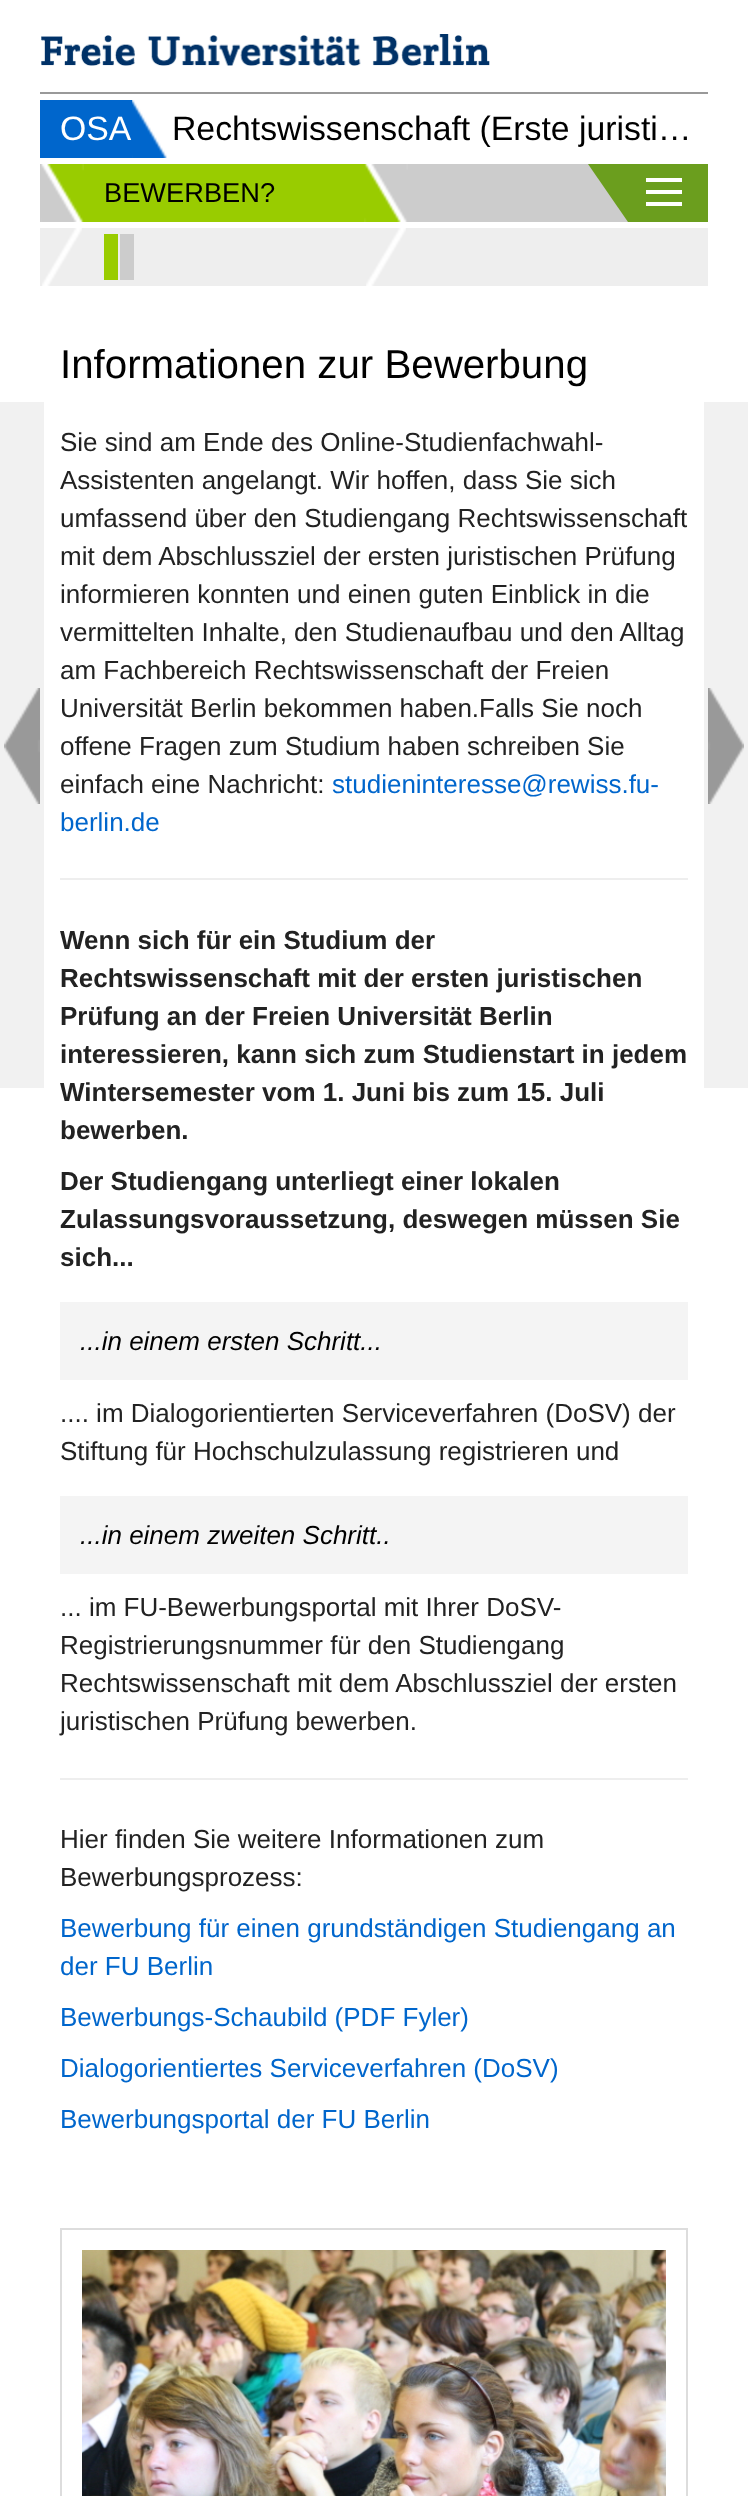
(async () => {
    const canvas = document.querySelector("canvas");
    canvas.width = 748;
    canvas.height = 2496;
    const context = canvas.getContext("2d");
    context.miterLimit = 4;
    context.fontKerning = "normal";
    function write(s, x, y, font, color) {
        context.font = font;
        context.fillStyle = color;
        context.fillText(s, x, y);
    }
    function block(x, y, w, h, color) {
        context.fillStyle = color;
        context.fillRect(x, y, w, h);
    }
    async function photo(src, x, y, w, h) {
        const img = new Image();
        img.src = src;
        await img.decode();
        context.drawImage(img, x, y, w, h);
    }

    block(0, 0, 748, 2496, "rgb(255, 255, 255)");
    await photo("media/1.png", 41, 34, 449, 32);
    block(40, 92, 668, 2, "rgb(153, 153, 153)");
    await photo("media/2.png", 132, 100, 35, 58);
    block(40, 100, 92, 58, "rgb(0, 102, 204)");
    write("OSA", 60, 140, "33.75px Liberation Sans", "rgb(255, 255, 255)");
    write("Rechtswissenschaft (Erste juristi…", 172, 140, "33.75px Liberation Sans", "rgb(0, 0, 0)");
    block(40, 164, 588, 58, "rgb(204, 204, 204)");
    await photo("media/3.png", 41, 164, 43, 58);
    block(40, 228, 668, 58, "rgb(238, 238, 238)");
    await photo("media/4.png", 42, 228, 40, 58);
    block(84, 164, 280, 58, "rgb(153, 204, 0)");
    await photo("media/5.png", 364, 164, 44, 58);
    write("BEWERBEN?", 104, 202, "27.25px Liberation Sans", "rgb(0, 0, 0)");
    await photo("media/4.png", 366, 228, 40, 58);
    block(104, 234, 14, 46, "rgb(153, 204, 0)");
    block(120, 234, 14, 46, "rgb(204, 204, 204)");
    block(628, 164, 80, 58, "rgb(107, 158, 30)");
    context.beginPath();
    context.moveTo(628, 164);
    context.lineTo(628, 222);
    context.lineTo(588, 164);
    context.closePath();
    context.fill();
    block(646, 178, 36, 4, "rgb(255, 255, 255)");
    block(646, 190, 36, 4, "rgb(255, 255, 255)");
    block(646, 202, 36, 4, "rgb(255, 255, 255)");
    block(0, 402, 44, 686, "rgb(241, 241, 241)");
    await photo("media/6.png", 4, 688, 36, 116);
    block(704, 402, 44, 686, "rgb(241, 241, 241)");
    await photo("media/7.png", 708, 688, 36, 116);
    write("Informationen zur Bewerbung", 60, 378, "40.25px Liberation Sans", "rgb(0, 0, 0)");
    write("Sie sind am Ende des Online-Studienfachwahl-", 60, 451, "26px Liberation Sans", "rgb(34, 34, 34)");
    write("Assistenten angelangt. Wir hoffen, dass Sie sich", 60, 489, "26px Liberation Sans", "rgb(34, 34, 34)");
    write("umfassend über den Studiengang Rechtswissenschaft", 60, 527, "26px Liberation Sans", "rgb(34, 34, 34)");
    write("mit dem Abschlussziel der ersten juristischen Prüfung", 60, 565, "26px Liberation Sans", "rgb(34, 34, 34)");
    write("informieren konnten und einen guten Einblick in die", 60, 603, "26px Liberation Sans", "rgb(34, 34, 34)");
    write("vermittelten Inhalte, den Studienaufbau und den Alltag", 60, 641, "26px Liberation Sans", "rgb(34, 34, 34)");
    write("am Fachbereich Rechtswissenschaft der Freien", 60, 679, "26px Liberation Sans", "rgb(34, 34, 34)");
    write("Universität Berlin bekommen haben.Falls Sie noch", 60, 717, "26px Liberation Sans", "rgb(34, 34, 34)");
    write("offene Fragen zum Studium haben schreiben Sie", 60, 755, "26px Liberation Sans", "rgb(34, 34, 34)");
    write("einfach eine Nachricht:", 60, 793, "26px Liberation Sans", "rgb(34, 34, 34)");
    write("studieninteresse@rewiss.fu-", 332, 793, "26px Liberation Sans", "rgb(0, 102, 204)");
    write("berlin.de", 60, 831, "26px Liberation Sans", "rgb(0, 102, 204)");
    block(60, 878, 628, 2, "rgb(238, 238, 238)");
    write("Wenn sich für ein Studium der", 60, 949, "bold 26px Liberation Sans", "rgb(34, 34, 34)");
    write("Rechtswissenschaft mit der ersten juristischen", 60, 987, "bold 26px Liberation Sans", "rgb(34, 34, 34)");
    write("Prüfung an der Freien Universität Berlin", 60, 1025, "bold 26px Liberation Sans", "rgb(34, 34, 34)");
    write("interessieren, kann sich zum Studienstart in jedem", 60, 1063, "bold 26px Liberation Sans", "rgb(34, 34, 34)");
    write("Wintersemester vom 1. Juni bis zum 15. Juli", 60, 1101, "bold 26px Liberation Sans", "rgb(34, 34, 34)");
    write("bewerben.", 60, 1139, "bold 26px Liberation Sans", "rgb(34, 34, 34)");
    write("Der Studiengang unterliegt einer lokalen", 60, 1190, "bold 26px Liberation Sans", "rgb(34, 34, 34)");
    write("Zulassungsvoraussetzung, deswegen müssen Sie", 60, 1228, "bold 26px Liberation Sans", "rgb(34, 34, 34)");
    write("sich...", 60, 1266, "bold 26px Liberation Sans", "rgb(34, 34, 34)");
    block(60, 1302, 628, 78, "rgb(244, 244, 244)");
    write("...in einem ersten Schritt...", 80, 1350, "italic 26px Liberation Sans", "rgb(0, 0, 0)");
    write(".... im Dialogorientierten Serviceverfahren (DoSV) der", 60, 1422, "26px Liberation Sans", "rgb(34, 34, 34)");
    write("Stiftung für Hochschulzulassung registrieren und", 60, 1460, "26px Liberation Sans", "rgb(34, 34, 34)");
    block(60, 1496, 628, 78, "rgb(244, 244, 244)");
    write("...in einem zweiten Schritt..", 80, 1544, "italic 26px Liberation Sans", "rgb(0, 0, 0)");
    write("... im FU-Bewerbungsportal mit Ihrer DoSV-", 60, 1616, "26px Liberation Sans", "rgb(34, 34, 34)");
    write("Registrierungsnummer für den Studiengang", 60, 1654, "26px Liberation Sans", "rgb(34, 34, 34)");
    write("Rechtswissenschaft mit dem Abschlussziel der ersten", 60, 1692, "26px Liberation Sans", "rgb(34, 34, 34)");
    write("juristischen Prüfung bewerben.", 60, 1730, "26px Liberation Sans", "rgb(34, 34, 34)");
    block(60, 1778, 628, 2, "rgb(238, 238, 238)");
    write("Hier finden Sie weitere Informationen zum", 60, 1848, "26px Liberation Sans", "rgb(34, 34, 34)");
    write("Bewerbungsprozess:", 60, 1886, "26px Liberation Sans", "rgb(34, 34, 34)");
    write("Bewerbung für einen grundständigen Studiengang an", 60, 1937, "26px Liberation Sans", "rgb(0, 102, 204)");
    write("der FU Berlin", 60, 1975, "26px Liberation Sans", "rgb(0, 102, 204)");
    write("Bewerbungs-Schaubild (PDF Fyler)", 60, 2026, "26px Liberation Sans", "rgb(0, 102, 204)");
    write("Dialogorientiertes Serviceverfahren (DoSV)", 60, 2077, "26px Liberation Sans", "rgb(0, 102, 204)");
    write("Bewerbungsportal der FU Berlin", 60, 2128, "26px Liberation Sans", "rgb(0, 102, 204)");
    context.strokeStyle = "rgb(221, 221, 221)";
    context.lineWidth = 2;
    context.strokeRect(61, 2229, 626, 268);
    await photo("media/8.png", 82, 2250, 584, 246);
})();
